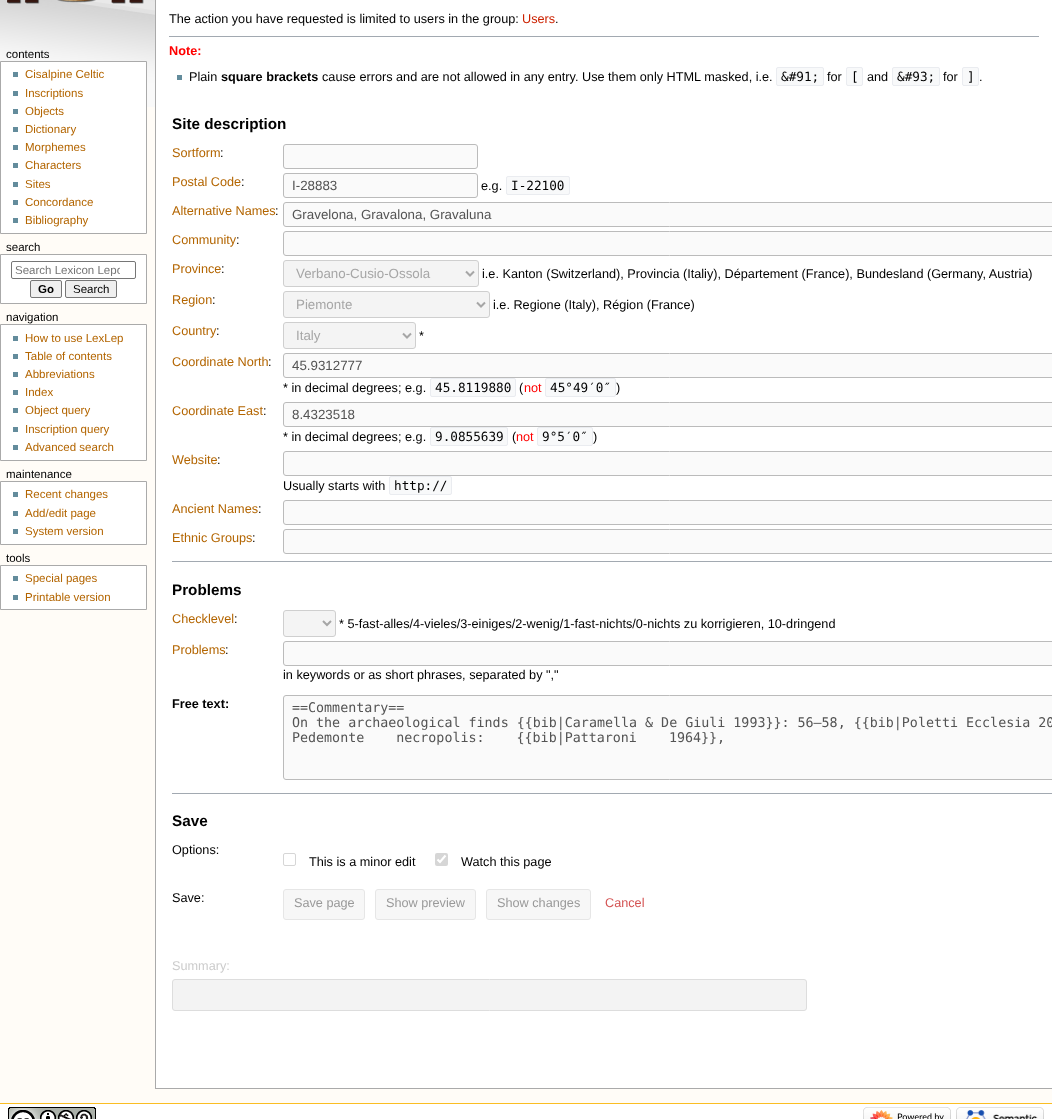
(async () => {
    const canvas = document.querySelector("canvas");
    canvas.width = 1052;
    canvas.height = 1119;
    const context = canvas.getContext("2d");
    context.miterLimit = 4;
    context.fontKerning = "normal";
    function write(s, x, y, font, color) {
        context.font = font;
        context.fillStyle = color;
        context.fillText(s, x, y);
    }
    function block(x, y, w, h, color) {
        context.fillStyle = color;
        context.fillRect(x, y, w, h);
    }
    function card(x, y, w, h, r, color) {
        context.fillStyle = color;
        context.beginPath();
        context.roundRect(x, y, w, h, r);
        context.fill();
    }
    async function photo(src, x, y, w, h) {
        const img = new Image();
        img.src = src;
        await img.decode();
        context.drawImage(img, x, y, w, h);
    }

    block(0, 0, 1052, 1119, "rgb(255, 252, 247)");
    await photo("media/1.png", 0, 0, 155, 107);
    await photo("media/2.png", 7, 0, 137, 4);
    write("contents", 6, 58, "11.5px Liberation Sans", "rgb(0, 0, 0)");
    context.fillStyle = "rgb(255, 255, 255)";
    context.beginPath();
    context.rect(0.5, 61.5, 146, 172);
    context.fill();
    context.strokeStyle = "rgb(170, 170, 170)";
    context.stroke();
    block(13, 72, 5, 5, "rgb(99, 140, 156)");
    write("Cisalpine Celtic", 25, 78, "11.5px Liberation Sans", "rgb(179, 101, 0)");
    block(13, 91, 5, 5, "rgb(99, 140, 156)");
    write("Inscriptions", 25, 97, "11.5px Liberation Sans", "rgb(179, 101, 0)");
    block(13, 109, 5, 5, "rgb(99, 140, 156)");
    write("Objects", 25, 115, "11.5px Liberation Sans", "rgb(179, 101, 0)");
    block(13, 127, 5, 5, "rgb(99, 140, 156)");
    write("Dictionary", 25, 133, "11.5px Liberation Sans", "rgb(179, 101, 0)");
    block(13, 145, 5, 5, "rgb(99, 140, 156)");
    write("Morphemes", 25, 151, "11.5px Liberation Sans", "rgb(179, 101, 0)");
    block(13, 163, 5, 5, "rgb(99, 140, 156)");
    write("Characters", 25, 169, "11.5px Liberation Sans", "rgb(179, 101, 0)");
    block(13, 182, 5, 5, "rgb(99, 140, 156)");
    write("Sites", 25, 188, "11.5px Liberation Sans", "rgb(179, 101, 0)");
    block(13, 200, 5, 5, "rgb(99, 140, 156)");
    write("Concordance", 25, 206, "11.5px Liberation Sans", "rgb(179, 101, 0)");
    block(13, 218, 5, 5, "rgb(99, 140, 156)");
    write("Bibliography", 25, 224, "11.5px Liberation Sans", "rgb(179, 101, 0)");
    write("search", 6, 251, "11.5px Liberation Sans", "rgb(0, 0, 0)");
    context.fillStyle = "rgb(255, 255, 255)";
    context.beginPath();
    context.rect(0.5, 254.5, 146, 49);
    context.fill();
    context.stroke();
    context.beginPath();
    context.roundRect(11.5, 261.5, 124, 17, 1.5);
    context.strokeStyle = "rgb(118, 118, 118)";
    context.stroke();
    context.save();
    context.beginPath();
    context.rect(15, 264, 105, 12);
    context.clip();
    write("Search Lexicon Lepo", 15, 274, "11.5px Liberation Sans", "rgb(117, 117, 117)");
    context.restore();
    context.fillStyle = "rgb(239, 239, 239)";
    context.beginPath();
    context.roundRect(30.5, 280.5, 31, 17, 1.5);
    context.fill();
    context.stroke();
    write("Go", 38, 293, "bold 11.5px Liberation Sans", "rgb(0, 0, 0)");
    context.fillStyle = "rgb(239, 239, 239)";
    context.beginPath();
    context.roundRect(65.5, 280.5, 51, 17, 1.5);
    context.fill();
    context.stroke();
    write("Search", 73, 293, "11.5px Liberation Sans", "rgb(0, 0, 0)");
    write("navigation", 6, 321, "11.5px Liberation Sans", "rgb(0, 0, 0)");
    context.fillStyle = "rgb(255, 255, 255)";
    context.beginPath();
    context.rect(0.5, 324.5, 146, 136);
    context.fill();
    context.strokeStyle = "rgb(170, 170, 170)";
    context.stroke();
    block(13, 336, 5, 5, "rgb(99, 140, 156)");
    write("How to use LexLep", 25, 342, "11.5px Liberation Sans", "rgb(179, 101, 0)");
    block(13, 354, 5, 5, "rgb(99, 140, 156)");
    write("Table of contents", 25, 360, "11.5px Liberation Sans", "rgb(179, 101, 0)");
    block(13, 372, 5, 5, "rgb(99, 140, 156)");
    write("Abbreviations", 25, 378, "11.5px Liberation Sans", "rgb(179, 101, 0)");
    block(13, 390, 5, 5, "rgb(99, 140, 156)");
    write("Index", 25, 396, "11.5px Liberation Sans", "rgb(179, 101, 0)");
    block(13, 408, 5, 5, "rgb(99, 140, 156)");
    write("Object query", 25, 414, "11.5px Liberation Sans", "rgb(179, 101, 0)");
    block(13, 427, 5, 5, "rgb(99, 140, 156)");
    write("Inscription query", 25, 433, "11.5px Liberation Sans", "rgb(179, 101, 0)");
    block(13, 445, 5, 5, "rgb(99, 140, 156)");
    write("Advanced search", 25, 451, "11.5px Liberation Sans", "rgb(179, 101, 0)");
    write("maintenance", 6, 478, "11.5px Liberation Sans", "rgb(0, 0, 0)");
    context.fillStyle = "rgb(255, 255, 255)";
    context.beginPath();
    context.rect(0.5, 481.5, 146, 63);
    context.fill();
    context.stroke();
    block(13, 492, 5, 5, "rgb(99, 140, 156)");
    write("Recent changes", 25, 498, "11.5px Liberation Sans", "rgb(179, 101, 0)");
    block(13, 511, 5, 5, "rgb(99, 140, 156)");
    write("Add/edit page", 25, 517, "11.5px Liberation Sans", "rgb(179, 101, 0)");
    block(13, 529, 5, 5, "rgb(99, 140, 156)");
    write("System version", 25, 535, "11.5px Liberation Sans", "rgb(179, 101, 0)");
    write("tools", 6, 562, "11.5px Liberation Sans", "rgb(0, 0, 0)");
    context.fillStyle = "rgb(255, 255, 255)";
    context.beginPath();
    context.rect(0.5, 565.5, 146, 44);
    context.fill();
    context.stroke();
    block(13, 576, 5, 5, "rgb(99, 140, 156)");
    write("Special pages", 25, 582, "11.5px Liberation Sans", "rgb(179, 101, 0)");
    block(13, 595, 5, 5, "rgb(99, 140, 156)");
    write("Printable version", 25, 601, "11.5px Liberation Sans", "rgb(179, 101, 0)");
    block(156, 0, 896, 1088, "rgb(255, 255, 255)");
    block(155, 1088, 897, 1, "rgb(170, 170, 170)");
    block(155, 0, 1, 1089, "rgb(170, 170, 170)");
    write("The action you have requested is limited to users in the group:", 169, 23, "12.7px Liberation Sans", "rgb(0, 0, 0)");
    write("Users", 522, 23, "12.7px Liberation Sans", "rgb(204, 34, 0)");
    write(".", 555, 23, "12.7px Liberation Sans", "rgb(0, 0, 0)");
    block(169, 36, 870, 1, "rgb(162, 169, 177)");
    write("Note:", 169, 55, "bold 12.7px Liberation Sans", "rgb(255, 0, 0)");
    block(177, 75, 5, 5, "rgb(99, 140, 156)");
    write("Plain", 189, 81, "12.7px Liberation Sans", "rgb(0, 0, 0)");
    write("square brackets", 221, 81, "bold 12.7px Liberation Sans", "rgb(0, 0, 0)");
    write("cause errors and are not allowed in any entry. Use them only HTML masked, i.e.", 322, 81, "12.7px Liberation Sans", "rgb(0, 0, 0)");
    context.fillStyle = "rgb(248, 249, 250)";
    context.beginPath();
    context.roundRect(776.5, 67.5, 47, 18, 1.5);
    context.fill();
    context.strokeStyle = "rgb(234, 236, 240)";
    context.stroke();
    write("&#91;", 781, 81, "12.7px DejaVu Sans Mono", "rgb(0, 0, 0)");
    write("for", 827, 81, "12.7px Liberation Sans", "rgb(0, 0, 0)");
    context.fillStyle = "rgb(248, 249, 250)";
    context.beginPath();
    context.roundRect(846.5, 67.5, 16, 18, 1.5);
    context.fill();
    context.stroke();
    write("[", 851, 81, "12.7px DejaVu Sans Mono", "rgb(0, 0, 0)");
    write("and", 867, 81, "12.7px Liberation Sans", "rgb(0, 0, 0)");
    context.fillStyle = "rgb(248, 249, 250)";
    context.beginPath();
    context.roundRect(892.5, 67.5, 47, 18, 1.5);
    context.fill();
    context.stroke();
    write("&#93;", 897, 81, "12.7px DejaVu Sans Mono", "rgb(0, 0, 0)");
    write("for", 943, 81, "12.7px Liberation Sans", "rgb(0, 0, 0)");
    context.fillStyle = "rgb(248, 249, 250)";
    context.beginPath();
    context.roundRect(962.5, 67.5, 16, 18, 1.5);
    context.fill();
    context.stroke();
    write("]", 967, 81, "12.7px DejaVu Sans Mono", "rgb(0, 0, 0)");
    write(".", 979, 81, "12.7px Liberation Sans", "rgb(0, 0, 0)");
    write("Site description", 172, 129, "bold 15.25px Liberation Sans", "rgb(0, 0, 0)");
    write("Sortform", 172, 157, "12.7px Liberation Sans", "rgb(179, 101, 0)");
    write(":", 220, 157, "12.7px Liberation Sans", "rgb(0, 0, 0)");
    context.fillStyle = "rgb(250, 250, 250)";
    context.beginPath();
    context.roundRect(283.5, 144.5, 194, 24, 2.5);
    context.fill();
    context.strokeStyle = "rgb(187, 187, 187)";
    context.stroke();
    write("Postal Code", 172, 186, "12.7px Liberation Sans", "rgb(179, 101, 0)");
    write(":", 241, 186, "12.7px Liberation Sans", "rgb(0, 0, 0)");
    context.fillStyle = "rgb(250, 250, 250)";
    context.beginPath();
    context.roundRect(283.5, 173.5, 194, 24, 2.5);
    context.fill();
    context.stroke();
    write("I-28883", 292, 190, "13.33px Liberation Sans", "rgb(84, 84, 84)");
    write("e.g.", 481, 190, "12.7px Liberation Sans", "rgb(0, 0, 0)");
    context.fillStyle = "rgb(248, 249, 250)";
    context.beginPath();
    context.roundRect(506.5, 176.5, 63, 18, 1.5);
    context.fill();
    context.strokeStyle = "rgb(234, 236, 240)";
    context.stroke();
    write("I-22100", 511, 190, "12.7px DejaVu Sans Mono", "rgb(0, 0, 0)");
    write("Alternative Names", 172, 215, "12.7px Liberation Sans", "rgb(179, 101, 0)");
    write(":", 275, 215, "12.7px Liberation Sans", "rgb(0, 0, 0)");
    context.fillStyle = "rgb(250, 250, 250)";
    context.beginPath();
    context.roundRect(283.5, 202.5, 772, 24, 2.5);
    context.fill();
    context.strokeStyle = "rgb(187, 187, 187)";
    context.stroke();
    write("Gravelona, Gravalona, Gravaluna", 292, 219, "13.33px Liberation Sans", "rgb(84, 84, 84)");
    write("Community", 172, 244, "12.7px Liberation Sans", "rgb(179, 101, 0)");
    write(":", 236, 244, "12.7px Liberation Sans", "rgb(0, 0, 0)");
    context.fillStyle = "rgb(250, 250, 250)";
    context.beginPath();
    context.roundRect(283.5, 231.5, 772, 24, 2.5);
    context.fill();
    context.stroke();
    write("Province", 172, 273, "12.7px Liberation Sans", "rgb(179, 101, 0)");
    write(":", 221, 273, "12.7px Liberation Sans", "rgb(0, 0, 0)");
    context.fillStyle = "rgb(244, 244, 244)";
    context.beginPath();
    context.roundRect(283.5, 260.5, 195, 26, 2.5);
    context.fill();
    context.strokeStyle = "rgb(207, 207, 207)";
    context.stroke();
    context.beginPath();
    context.moveTo(466, 271.5);
    context.lineTo(470, 275.5);
    context.lineTo(474, 271.5);
    context.strokeStyle = "rgb(166, 166, 166)";
    context.lineWidth = 2;
    context.stroke();
    write("Verbano-Cusio-Ossola", 296, 278, "13.33px Liberation Sans", "rgb(166, 166, 166)");
    write("i.e. Kanton (Switzerland), Provincia (Italiy), Département (France), Bundesland (Germany, Austria)", 482, 278, "12.7px Liberation Sans", "rgb(0, 0, 0)");
    write("Region", 172, 304, "12.7px Liberation Sans", "rgb(179, 101, 0)");
    write(":", 212, 304, "12.7px Liberation Sans", "rgb(0, 0, 0)");
    context.fillStyle = "rgb(244, 244, 244)";
    context.beginPath();
    context.roundRect(283.5, 291.5, 206, 26, 2.5);
    context.fill();
    context.strokeStyle = "rgb(207, 207, 207)";
    context.lineWidth = 1;
    context.stroke();
    context.beginPath();
    context.moveTo(477, 302.5);
    context.lineTo(481, 306.5);
    context.lineTo(485, 302.5);
    context.strokeStyle = "rgb(166, 166, 166)";
    context.lineWidth = 2;
    context.stroke();
    write("Piemonte", 296, 309, "13.33px Liberation Sans", "rgb(166, 166, 166)");
    write("i.e. Regione (Italy), Région (France)", 493, 309, "12.7px Liberation Sans", "rgb(0, 0, 0)");
    write("Country", 172, 335, "12.7px Liberation Sans", "rgb(179, 101, 0)");
    write(":", 216, 335, "12.7px Liberation Sans", "rgb(0, 0, 0)");
    context.fillStyle = "rgb(244, 244, 244)";
    context.beginPath();
    context.roundRect(283.5, 322.5, 132, 26, 2.5);
    context.fill();
    context.strokeStyle = "rgb(207, 207, 207)";
    context.lineWidth = 1;
    context.stroke();
    context.beginPath();
    context.moveTo(403, 333.5);
    context.lineTo(407, 337.5);
    context.lineTo(411, 333.5);
    context.strokeStyle = "rgb(166, 166, 166)";
    context.lineWidth = 2;
    context.stroke();
    write("Italy", 296, 340, "13.33px Liberation Sans", "rgb(166, 166, 166)");
    write("*", 419, 340, "12.7px Liberation Sans", "rgb(0, 0, 0)");
    write("Coordinate North", 172, 366, "12.7px Liberation Sans", "rgb(179, 101, 0)");
    write(":", 268, 366, "12.7px Liberation Sans", "rgb(0, 0, 0)");
    context.fillStyle = "rgb(250, 250, 250)";
    context.beginPath();
    context.roundRect(283.5, 353.5, 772, 24, 2.5);
    context.fill();
    context.strokeStyle = "rgb(187, 187, 187)";
    context.lineWidth = 1;
    context.stroke();
    write("45.9312777", 292, 370, "13.33px Liberation Sans", "rgb(84, 84, 84)");
    write("* in decimal degrees; e.g.", 283, 392, "12.7px Liberation Sans", "rgb(0, 0, 0)");
    context.fillStyle = "rgb(248, 249, 250)";
    context.beginPath();
    context.roundRect(430.5, 378.5, 85, 18, 1.5);
    context.fill();
    context.strokeStyle = "rgb(234, 236, 240)";
    context.stroke();
    write("45.8119880", 435, 392, "12.7px DejaVu Sans Mono", "rgb(0, 0, 0)");
    write("(", 519, 392, "12.7px Liberation Sans", "rgb(0, 0, 0)");
    write("not", 524, 392, "12.7px Liberation Sans", "rgb(255, 0, 0)");
    context.fillStyle = "rgb(248, 249, 250)";
    context.beginPath();
    context.roundRect(545.5, 378.5, 70, 18, 1.5);
    context.fill();
    context.stroke();
    write("45°49′0″", 550, 392, "12.7px DejaVu Sans Mono", "rgb(0, 0, 0)");
    write(")", 616, 392, "12.7px Liberation Sans", "rgb(0, 0, 0)");
    write("Coordinate East", 172, 415, "12.7px Liberation Sans", "rgb(179, 101, 0)");
    write(":", 263, 415, "12.7px Liberation Sans", "rgb(0, 0, 0)");
    context.fillStyle = "rgb(250, 250, 250)";
    context.beginPath();
    context.roundRect(283.5, 402.5, 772, 24, 2.5);
    context.fill();
    context.strokeStyle = "rgb(187, 187, 187)";
    context.stroke();
    write("8.4323518", 292, 419, "13.33px Liberation Sans", "rgb(84, 84, 84)");
    write("* in decimal degrees; e.g.", 283, 441, "12.7px Liberation Sans", "rgb(0, 0, 0)");
    context.fillStyle = "rgb(248, 249, 250)";
    context.beginPath();
    context.roundRect(430.5, 427.5, 77, 18, 1.5);
    context.fill();
    context.strokeStyle = "rgb(234, 236, 240)";
    context.stroke();
    write("9.0855639", 435, 441, "12.7px DejaVu Sans Mono", "rgb(0, 0, 0)");
    write("(", 512, 441, "12.7px Liberation Sans", "rgb(0, 0, 0)");
    write("not", 516, 441, "12.7px Liberation Sans", "rgb(255, 0, 0)");
    context.fillStyle = "rgb(248, 249, 250)";
    context.beginPath();
    context.roundRect(537.5, 427.5, 55, 18, 1.5);
    context.fill();
    context.stroke();
    write("9°5′0″", 542, 441, "12.7px DejaVu Sans Mono", "rgb(0, 0, 0)");
    write(")", 593, 441, "12.7px Liberation Sans", "rgb(0, 0, 0)");
    write("Website", 172, 464, "12.7px Liberation Sans", "rgb(179, 101, 0)");
    write(":", 217, 464, "12.7px Liberation Sans", "rgb(0, 0, 0)");
    context.fillStyle = "rgb(250, 250, 250)";
    context.beginPath();
    context.roundRect(283.5, 451.5, 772, 24, 2.5);
    context.fill();
    context.strokeStyle = "rgb(187, 187, 187)";
    context.stroke();
    write("Usually starts with", 283, 490, "12.7px Liberation Sans", "rgb(0, 0, 0)");
    context.fillStyle = "rgb(248, 249, 250)";
    context.beginPath();
    context.roundRect(389.5, 476.5, 62, 18, 1.5);
    context.fill();
    context.strokeStyle = "rgb(234, 236, 240)";
    context.stroke();
    write("http://", 394, 490, "12.7px DejaVu Sans Mono", "rgb(0, 0, 0)");
    write("Ancient Names", 172, 513, "12.7px Liberation Sans", "rgb(179, 101, 0)");
    write(":", 258, 513, "12.7px Liberation Sans", "rgb(0, 0, 0)");
    context.fillStyle = "rgb(250, 250, 250)";
    context.beginPath();
    context.roundRect(283.5, 500.5, 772, 24, 2.5);
    context.fill();
    context.strokeStyle = "rgb(187, 187, 187)";
    context.stroke();
    write("Ethnic Groups", 172, 542, "12.7px Liberation Sans", "rgb(179, 101, 0)");
    write(":", 252, 542, "12.7px Liberation Sans", "rgb(0, 0, 0)");
    context.fillStyle = "rgb(250, 250, 250)";
    context.beginPath();
    context.roundRect(283.5, 529.5, 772, 24, 2.5);
    context.fill();
    context.stroke();
    block(172, 561, 880, 1, "rgb(162, 169, 177)");
    write("Problems", 172, 595, "bold 15.25px Liberation Sans", "rgb(0, 0, 0)");
    write("Checklevel", 172, 623, "12.7px Liberation Sans", "rgb(179, 101, 0)");
    write(":", 234, 623, "12.7px Liberation Sans", "rgb(0, 0, 0)");
    context.fillStyle = "rgb(244, 244, 244)";
    context.beginPath();
    context.roundRect(283.5, 610.5, 52, 26, 2.5);
    context.fill();
    context.strokeStyle = "rgb(207, 207, 207)";
    context.stroke();
    context.beginPath();
    context.moveTo(323, 621);
    context.lineTo(327, 625);
    context.lineTo(331, 621);
    context.strokeStyle = "rgb(166, 166, 166)";
    context.lineWidth = 2;
    context.stroke();
    write("* 5-fast-alles/4-vieles/3-einiges/2-wenig/1-fast-nichts/0-nichts zu korrigieren, 10-dringend", 339, 628, "12.7px Liberation Sans", "rgb(0, 0, 0)");
    write("Problems", 172, 654, "12.7px Liberation Sans", "rgb(179, 101, 0)");
    write(":", 225, 654, "12.7px Liberation Sans", "rgb(0, 0, 0)");
    context.fillStyle = "rgb(250, 250, 250)";
    context.beginPath();
    context.roundRect(283.5, 641.5, 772, 24, 2.5);
    context.fill();
    context.strokeStyle = "rgb(187, 187, 187)";
    context.lineWidth = 1;
    context.stroke();
    write("in keywords or as short phrases, separated by \",\"", 283, 679, "12.7px Liberation Sans", "rgb(0, 0, 0)");
    write("Free text:", 172, 708, "bold 12.7px Liberation Sans", "rgb(0, 0, 0)");
    context.fillStyle = "rgb(250, 250, 250)";
    context.beginPath();
    context.roundRect(283.5, 695.5, 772, 84, 2.5);
    context.fill();
    context.stroke();
    write("==Commentary==", 292, 712, "13.33px DejaVu Sans Mono", "rgb(84, 84, 84)");
    write("On the archaeological finds {{bib|Caramella & De Giuli 1993}}: 56–58, {{bib|Poletti Ecclesia 20", 292, 727, "13.33px DejaVu Sans Mono", "rgb(84, 84, 84)");
    context.wordSpacing = "24px";
    write("Pedemonte necropolis: {{bib|Pattaroni 1964}},", 292, 742, "13.33px DejaVu Sans Mono", "rgb(84, 84, 84)");
    block(172, 793, 880, 1, "rgb(162, 169, 177)");
    context.wordSpacing = "0px";
    write("Save", 172, 826, "bold 15.25px Liberation Sans", "rgb(0, 0, 0)");
    write("Options:", 172, 854, "12.7px Liberation Sans", "rgb(0, 0, 0)");
    context.beginPath();
    context.roundRect(283.5, 853.5, 12, 12, 1.5);
    context.strokeStyle = "rgb(214, 214, 214)";
    context.stroke();
    write("This is a minor edit", 309, 866, "12.7px Liberation Sans", "rgb(0, 0, 0)");
    card(435, 853, 13, 13, 2, "rgb(214, 214, 214)");
    context.beginPath();
    context.moveTo(437.5, 859.5);
    context.lineTo(440, 862);
    context.lineTo(445.5, 855.5);
    context.strokeStyle = "rgb(255, 255, 255)";
    context.lineWidth = 2.1;
    context.stroke();
    write("Watch this page", 461, 866, "12.7px Liberation Sans", "rgb(0, 0, 0)");
    write("Save:", 172, 902, "12.7px Liberation Sans", "rgb(0, 0, 0)");
    context.fillStyle = "rgb(247, 247, 247)";
    context.beginPath();
    context.roundRect(283.5, 889.5, 81, 30, 2.5);
    context.fill();
    context.strokeStyle = "rgb(230, 230, 230)";
    context.lineWidth = 1;
    context.stroke();
    write("Save page", 294, 907, "12.7px Liberation Sans", "rgb(153, 153, 153)");
    context.fillStyle = "rgb(247, 247, 247)";
    context.beginPath();
    context.roundRect(375.5, 889.5, 100, 30, 2.5);
    context.fill();
    context.stroke();
    write("Show preview", 386, 907, "12.7px Liberation Sans", "rgb(153, 153, 153)");
    context.fillStyle = "rgb(247, 247, 247)";
    context.beginPath();
    context.roundRect(486.5, 889.5, 104, 30, 2.5);
    context.fill();
    context.stroke();
    write("Show changes", 497, 907, "12.7px Liberation Sans", "rgb(153, 153, 153)");
    write("Cancel", 605, 907, "12.7px Liberation Sans", "rgb(212, 83, 83)");
    write("Summary:", 172, 970, "12.7px Liberation Sans", "rgb(204, 204, 204)");
    context.fillStyle = "rgb(243, 243, 243)";
    context.beginPath();
    context.roundRect(172.5, 979.5, 634, 31, 2.5);
    context.fill();
    context.strokeStyle = "rgb(221, 221, 221)";
    context.stroke();
    block(0, 1104, 1052, 15, "rgb(255, 255, 255)");
    block(0, 1103, 1052, 1, "rgb(250, 189, 35)");
    await photo("media/3.png", 8, 1107, 88, 12);
    await photo("media/4.png", 863, 1107, 88, 12);
    await photo("media/5.png", 956, 1107, 88, 12);
})();
